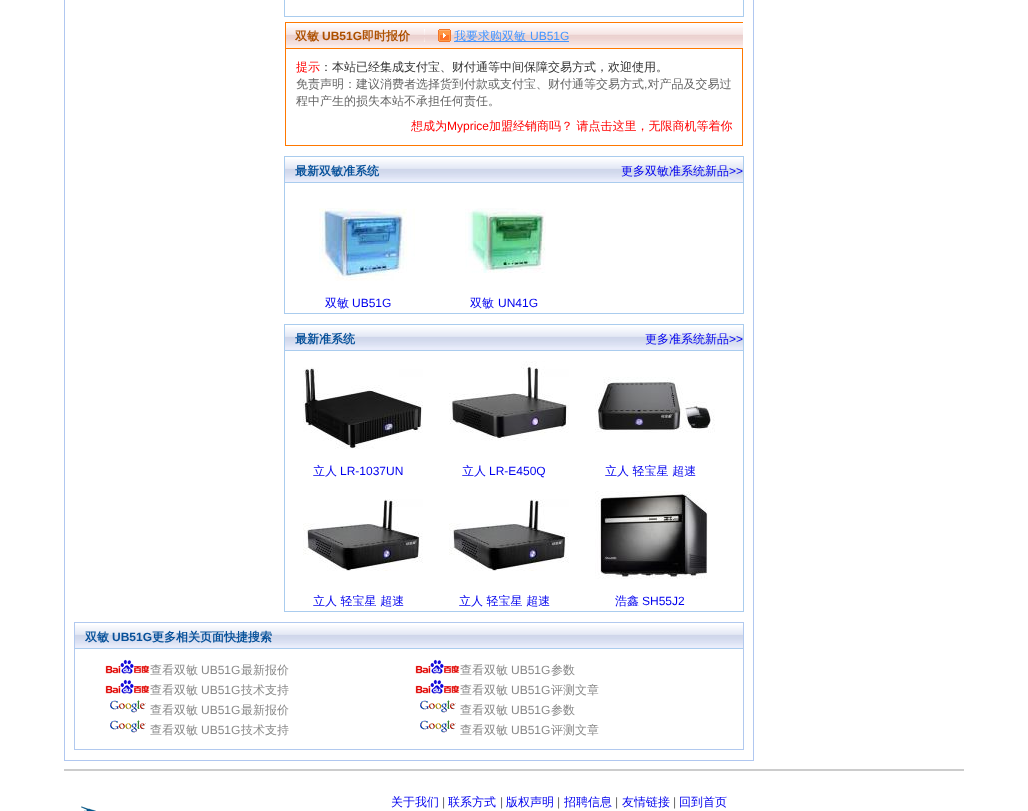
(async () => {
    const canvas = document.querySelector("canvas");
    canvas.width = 1028;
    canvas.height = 811;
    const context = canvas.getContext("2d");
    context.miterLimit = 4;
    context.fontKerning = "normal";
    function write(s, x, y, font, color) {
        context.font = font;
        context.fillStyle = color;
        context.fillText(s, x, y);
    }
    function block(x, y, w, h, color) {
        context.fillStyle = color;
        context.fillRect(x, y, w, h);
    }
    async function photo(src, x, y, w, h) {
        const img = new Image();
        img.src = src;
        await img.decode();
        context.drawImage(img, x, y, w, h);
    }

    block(0, 0, 1028, 811, "rgb(255, 255, 255)");
    context.strokeStyle = "rgb(176, 199, 240)";
    context.strokeRect(64.5, -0.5, 689, 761);
    context.strokeStyle = "rgb(170, 204, 238)";
    context.strokeRect(284.5, -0.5, 459, 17);
    await photo("media/1.png", 285, 22, 458, 27);
    write("双敏", 295, 40, "bold 12px WenQuanYi Zen Hei", "rgb(173, 80, 0)");
    write("UB51G", 322, 40, "bold 12px Liberation Sans", "rgb(173, 80, 0)");
    write("即时报价", 362, 40, "bold 12px WenQuanYi Zen Hei", "rgb(173, 80, 0)");
    await photo("media/2.png", 424, 29, 1, 13);
    await photo("media/3.png", 438, 29, 13, 13);
    block(454, 41, 115, 1, "rgb(69, 150, 255)");
    write("我要求购双敏", 454, 40, "500 12px WenQuanYi Zen Hei", "rgb(69, 150, 255)");
    write("UB51G", 530, 40, "12px Liberation Sans", "rgb(69, 150, 255)");
    block(742, 49, 1, 97, "rgb(255, 120, 0)");
    block(285, 145, 458, 1, "rgb(255, 120, 0)");
    block(285, 49, 1, 97, "rgb(255, 120, 0)");
    write("提示", 296, 71, "500 12px WenQuanYi Zen Hei", "rgb(255, 0, 0)");
    write("：本站已经集成支付宝、财付通等中间保障交易方式，欢迎使用。", 320, 71, "500 12px WenQuanYi Zen Hei", "rgb(51, 51, 51)");
    write("免责声明：建议消费者选择货到付款或支付宝、财付通等交易方式 对产品及交易过", 296, 88, "500 12px WenQuanYi Zen Hei", "rgb(102, 102, 102)");
    write(",", 644, 88, "12px Liberation Sans", "rgb(102, 102, 102)");
    write("程中产生的损失本站不承担任何责任。", 296, 105, "500 12px WenQuanYi Zen Hei", "rgb(102, 102, 102)");
    write("想成为", 411, 130, "500 12px WenQuanYi Zen Hei", "rgb(255, 0, 0)");
    write("Myprice", 447, 130, "12px Liberation Sans", "rgb(255, 0, 0)");
    write("加盟经销商吗？ 请点击这里，无限商机等着你", 489, 130, "500 12px WenQuanYi Zen Hei", "rgb(255, 0, 0)");
    context.strokeRect(284.5, 156.5, 459, 157);
    await photo("media/4.png", 285, 159, 458, 24);
    write("最新双敏准系统", 295, 175, "bold 12px WenQuanYi Zen Hei", "rgb(7, 81, 154)");
    write("更多双敏准系统新品", 621, 175, "500 12px WenQuanYi Zen Hei", "rgb(0, 0, 238)");
    write(">>", 729, 175, "12px Liberation Sans", "rgb(0, 0, 238)");
    await photo("media/5.png", 319, 208, 96, 73);
    write("双敏", 325, 307, "500 12px WenQuanYi Zen Hei", "rgb(0, 0, 238)");
    write("UB51G", 352, 307, "12px Liberation Sans", "rgb(0, 0, 238)");
    await photo("media/6.png", 465, 208, 81, 65);
    write("双敏", 470, 307, "500 12px WenQuanYi Zen Hei", "rgb(0, 0, 238)");
    write("UN41G", 498, 307, "12px Liberation Sans", "rgb(0, 0, 238)");
    context.strokeRect(284.5, 324.5, 459, 287);
    await photo("media/4.png", 285, 327, 458, 24);
    write("最新准系统", 295, 343, "bold 12px WenQuanYi Zen Hei", "rgb(7, 81, 154)");
    write("更多准系统新品", 645, 343, "500 12px WenQuanYi Zen Hei", "rgb(0, 0, 238)");
    write(">>", 729, 343, "12px Liberation Sans", "rgb(0, 0, 238)");
    await photo("media/7.png", 303, 367, 120, 82);
    write("立人", 313, 475, "500 12px WenQuanYi Zen Hei", "rgb(0, 0, 238)");
    write("LR-1037UN", 340, 475, "12px Liberation Sans", "rgb(0, 0, 238)");
    await photo("media/8.png", 449, 361, 120, 80);
    write("立人", 462, 475, "500 12px WenQuanYi Zen Hei", "rgb(0, 0, 238)");
    write("LR-E450Q", 489, 475, "12px Liberation Sans", "rgb(0, 0, 238)");
    await photo("media/9.png", 595, 377, 120, 56);
    write("立人 轻宝星 超速", 605, 475, "500 12px WenQuanYi Zen Hei", "rgb(0, 0, 238)");
    await photo("media/10.png", 303, 499, 120, 72);
    write("立人 轻宝星 超速", 313, 605, "500 12px WenQuanYi Zen Hei", "rgb(0, 0, 238)");
    await photo("media/10.png", 449, 499, 120, 72);
    write("立人 轻宝星 超速", 459, 605, "500 12px WenQuanYi Zen Hei", "rgb(0, 0, 238)");
    await photo("media/11.png", 595, 491, 113, 88);
    write("浩鑫", 615, 605, "500 12px WenQuanYi Zen Hei", "rgb(0, 0, 238)");
    write("SH55J2", 642, 605, "12px Liberation Sans", "rgb(0, 0, 238)");
    context.strokeStyle = "rgb(177, 201, 239)";
    context.strokeRect(74.5, 622.5, 669, 127);
    await photo("media/12.png", 75, 625, 668, 24);
    write("双敏", 85, 641, "bold 12px WenQuanYi Zen Hei", "rgb(7, 81, 154)");
    write("UB51G", 112, 641, "bold 12px Liberation Sans", "rgb(7, 81, 154)");
    write("更多相关页面快捷搜索", 152, 641, "bold 12px WenQuanYi Zen Hei", "rgb(7, 81, 154)");
    await photo("media/13.png", 105, 659, 45, 15);
    write("查看双敏", 150, 674, "500 12px WenQuanYi Zen Hei", "rgb(137, 137, 137)");
    write("UB51G", 201, 674, "12px Liberation Sans", "rgb(137, 137, 137)");
    write("最新报价", 241, 674, "500 12px WenQuanYi Zen Hei", "rgb(137, 137, 137)");
    await photo("media/13.png", 415, 659, 45, 15);
    write("查看双敏", 460, 674, "500 12px WenQuanYi Zen Hei", "rgb(137, 137, 137)");
    write("UB51G", 511, 674, "12px Liberation Sans", "rgb(137, 137, 137)");
    write("参数", 551, 674, "500 12px WenQuanYi Zen Hei", "rgb(137, 137, 137)");
    await photo("media/13.png", 105, 679, 45, 15);
    write("查看双敏", 150, 694, "500 12px WenQuanYi Zen Hei", "rgb(137, 137, 137)");
    write("UB51G", 201, 694, "12px Liberation Sans", "rgb(137, 137, 137)");
    write("技术支持", 241, 694, "500 12px WenQuanYi Zen Hei", "rgb(137, 137, 137)");
    await photo("media/13.png", 415, 679, 45, 15);
    write("查看双敏", 460, 694, "500 12px WenQuanYi Zen Hei", "rgb(137, 137, 137)");
    write("UB51G", 511, 694, "12px Liberation Sans", "rgb(137, 137, 137)");
    write("评测文章", 551, 694, "500 12px WenQuanYi Zen Hei", "rgb(137, 137, 137)");
    await photo("media/14.png", 110, 700, 36, 13);
    write("查看双敏", 150, 714, "500 12px WenQuanYi Zen Hei", "rgb(137, 137, 137)");
    write("UB51G", 201, 714, "12px Liberation Sans", "rgb(137, 137, 137)");
    write("最新报价", 241, 714, "500 12px WenQuanYi Zen Hei", "rgb(137, 137, 137)");
    await photo("media/14.png", 420, 700, 36, 13);
    write("查看双敏", 460, 714, "500 12px WenQuanYi Zen Hei", "rgb(137, 137, 137)");
    write("UB51G", 511, 714, "12px Liberation Sans", "rgb(137, 137, 137)");
    write("参数", 551, 714, "500 12px WenQuanYi Zen Hei", "rgb(137, 137, 137)");
    await photo("media/14.png", 110, 720, 36, 13);
    write("查看双敏", 150, 734, "500 12px WenQuanYi Zen Hei", "rgb(137, 137, 137)");
    write("UB51G", 201, 734, "12px Liberation Sans", "rgb(137, 137, 137)");
    write("技术支持", 241, 734, "500 12px WenQuanYi Zen Hei", "rgb(137, 137, 137)");
    await photo("media/14.png", 420, 720, 36, 13);
    write("查看双敏", 460, 734, "500 12px WenQuanYi Zen Hei", "rgb(137, 137, 137)");
    write("UB51G", 511, 734, "12px Liberation Sans", "rgb(137, 137, 137)");
    write("评测文章", 551, 734, "500 12px WenQuanYi Zen Hei", "rgb(137, 137, 137)");
    block(64, 769, 900, 2, "rgb(204, 204, 204)");
    await photo("media/15.png", 81, 806, 15, 5);
    write("关于我们", 391, 806, "500 12px WenQuanYi Zen Hei", "rgb(0, 0, 238)");
    write("|", 442, 806, "12px Liberation Sans", "rgb(102, 102, 102)");
    write("联系方式", 448, 806, "500 12px WenQuanYi Zen Hei", "rgb(0, 0, 238)");
    write("|", 500, 806, "12px Liberation Sans", "rgb(102, 102, 102)");
    write("版权声明", 506, 806, "500 12px WenQuanYi Zen Hei", "rgb(0, 0, 238)");
    write("|", 557, 806, "12px Liberation Sans", "rgb(102, 102, 102)");
    write("招聘信息", 564, 806, "500 12px WenQuanYi Zen Hei", "rgb(0, 0, 238)");
    write("|", 615, 806, "12px Liberation Sans", "rgb(102, 102, 102)");
    write("友情链接", 622, 806, "500 12px WenQuanYi Zen Hei", "rgb(0, 0, 238)");
    write("|", 673, 806, "12px Liberation Sans", "rgb(102, 102, 102)");
    write("回到首页", 679, 806, "500 12px WenQuanYi Zen Hei", "rgb(0, 0, 238)");
})();
